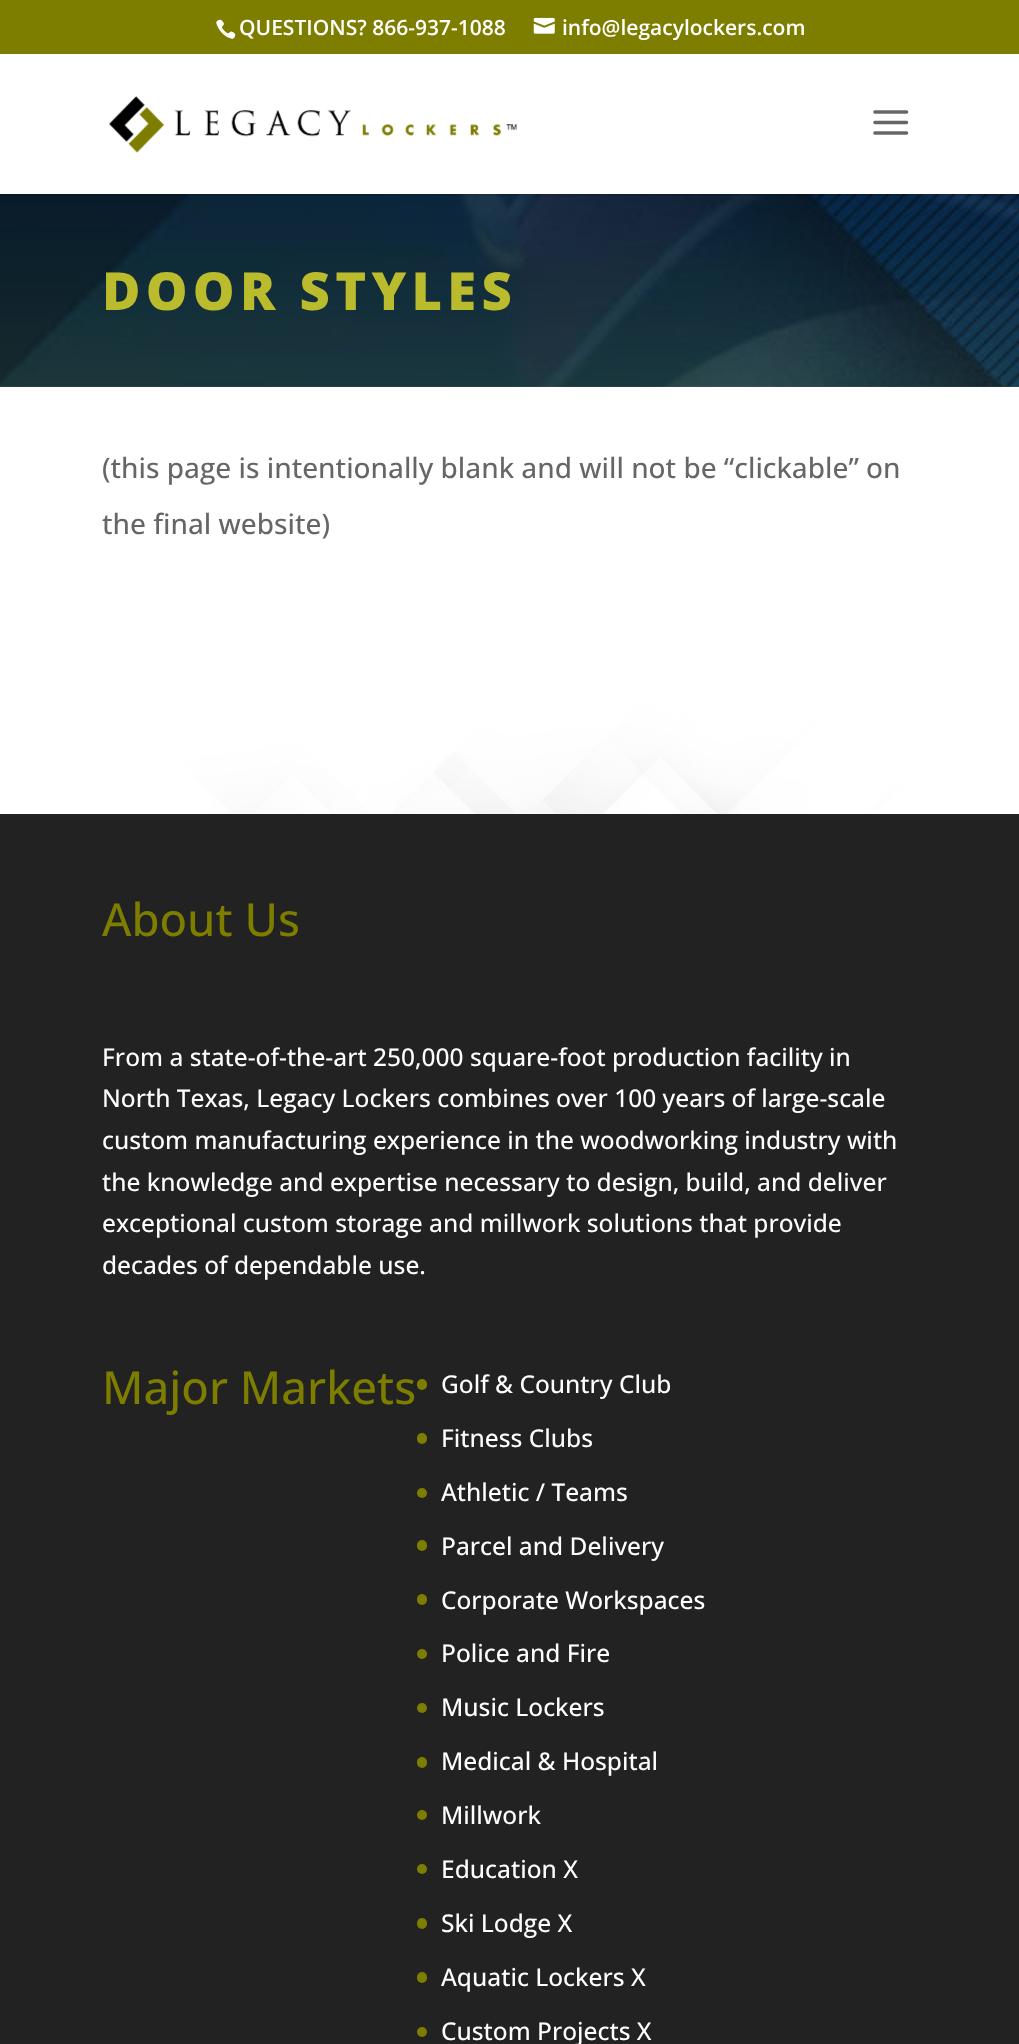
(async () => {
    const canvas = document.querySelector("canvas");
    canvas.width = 1019;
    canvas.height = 2044;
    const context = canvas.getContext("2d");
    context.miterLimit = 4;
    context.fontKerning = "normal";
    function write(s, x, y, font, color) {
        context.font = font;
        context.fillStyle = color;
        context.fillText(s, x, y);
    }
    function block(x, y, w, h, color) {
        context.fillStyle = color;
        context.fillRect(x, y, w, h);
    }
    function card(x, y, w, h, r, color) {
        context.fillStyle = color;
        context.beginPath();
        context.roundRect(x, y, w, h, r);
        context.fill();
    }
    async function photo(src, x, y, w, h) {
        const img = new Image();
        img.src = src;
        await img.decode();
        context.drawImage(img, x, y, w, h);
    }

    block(0, 0, 1019, 2044, "rgb(255, 255, 255)");
    block(0, 0, 1019, 54, "rgb(125, 125, 0)");
    await photo("media/1.png", 216, 19, 20, 20);
    write("QUESTIONS? 866-937-1088", 239, 35, "600 21px Open Sans", "rgb(255, 255, 255)");
    await photo("media/2.png", 533, 17, 22, 17);
    write("info@legacylockers.com", 562, 35, "600 21px Open Sans", "rgb(255, 255, 255)");
    await photo("media/5.png", 0, 194, 1019, 193);
    block(0, 194, 1019, 2, "rgba(0, 0, 0, 0.1)");
    await photo("media/3.png", 108, 96, 409, 57);
    await photo("media/4.png", 873, 110, 36, 25);
    context.letterSpacing = "5.25px";
    write("DOOR STYLES", 102, 310, "800 52.5px Open Sans", "rgb(187, 187, 46)");
    await photo("media/6.png", 0, 386, 1019, 428);
    context.letterSpacing = "0px";
    write("(this page is intentionally blank and will not be “clickable” on", 102, 478, "500 28px Open Sans", "rgb(102, 102, 102)");
    write("the final website)", 102, 534, "500 28px Open Sans", "rgb(102, 102, 102)");
    block(0, 814, 1019, 1230, "rgb(34, 34, 34)");
    write("About Us", 102, 936, "500 45.5px Open Sans", "rgb(125, 125, 0)");
    write("From a state-of-the-art 250,000 square-foot production facility in", 102, 1066, "500 24.5px Open Sans", "rgb(255, 255, 255)");
    write("North Texas, Legacy Lockers combines over 100 years of large-scale", 102, 1107, "500 24.5px Open Sans", "rgb(255, 255, 255)");
    write("custom manufacturing experience in the woodworking industry with", 102, 1149, "500 24.5px Open Sans", "rgb(255, 255, 255)");
    write("the knowledge and expertise necessary to design, build, and deliver", 102, 1191, "500 24.5px Open Sans", "rgb(255, 255, 255)");
    write("exceptional custom storage and millwork solutions that provide", 102, 1232, "500 24.5px Open Sans", "rgb(255, 255, 255)");
    write("decades of dependable use.", 102, 1274, "500 24.5px Open Sans", "rgb(255, 255, 255)");
    write("Major Markets", 102, 1404, "500 45.5px Open Sans", "rgb(125, 125, 0)");
    card(417, 1379, 10, 11, 5, "rgb(125, 125, 0)");
    write("Golf & Country Club", 441, 1393, "500 24.5px Open Sans", "rgb(255, 255, 255)");
    card(417, 1433, 10, 11, 5, "rgb(125, 125, 0)");
    write("Fitness Clubs", 441, 1447, "500 24.5px Open Sans", "rgb(255, 255, 255)");
    context.fillStyle = "rgb(125, 125, 0)";
    context.beginPath();
    context.arc(422, 1493, 5, 0, Math.PI * 2);
    context.fill();
    write("Athletic / Teams", 441, 1501, "500 24.5px Open Sans", "rgb(255, 255, 255)");
    card(417, 1540, 10, 11, 5, "rgb(125, 125, 0)");
    write("Parcel and Delivery", 441, 1555, "500 24.5px Open Sans", "rgb(255, 255, 255)");
    card(417, 1594, 10, 11, 5, "rgb(125, 125, 0)");
    write("Corporate Workspaces", 441, 1609, "500 24.5px Open Sans", "rgb(255, 255, 255)");
    context.fillStyle = "rgb(125, 125, 0)";
    context.beginPath();
    context.arc(422, 1654, 5, 0, Math.PI * 2);
    context.fill();
    write("Police and Fire", 441, 1662, "500 24.5px Open Sans", "rgb(255, 255, 255)");
    context.fillStyle = "rgb(125, 125, 0)";
    context.beginPath();
    context.arc(422, 1708, 5, 0, Math.PI * 2);
    context.fill();
    write("Music Lockers", 441, 1716, "500 24.5px Open Sans", "rgb(255, 255, 255)");
    card(417, 1757, 10, 11, 5, "rgb(125, 125, 0)");
    write("Medical & Hospital", 441, 1770, "500 24.5px Open Sans", "rgb(255, 255, 255)");
    context.fillStyle = "rgb(125, 125, 0)";
    context.beginPath();
    context.arc(422, 1815, 5, 0, Math.PI * 2);
    context.fill();
    write("Millwork", 441, 1824, "500 24.5px Open Sans", "rgb(255, 255, 255)");
    context.fillStyle = "rgb(125, 125, 0)";
    context.beginPath();
    context.arc(422, 1869, 5, 0, Math.PI * 2);
    context.fill();
    write("Education X", 441, 1878, "500 24.5px Open Sans", "rgb(255, 255, 255)");
    card(417, 1918, 10, 11, 5, "rgb(125, 125, 0)");
    write("Ski Lodge X", 441, 1932, "500 24.5px Open Sans", "rgb(255, 255, 255)");
    card(417, 1972, 10, 11, 5, "rgb(125, 125, 0)");
    write("Aquatic Lockers X", 441, 1986, "500 24.5px Open Sans", "rgb(255, 255, 255)");
    context.fillStyle = "rgb(125, 125, 0)";
    context.beginPath();
    context.arc(422, 2032, 5, 0, Math.PI * 2);
    context.fill();
    write("Custom Projects X", 441, 2040, "500 24.5px Open Sans", "rgb(255, 255, 255)");
})();
